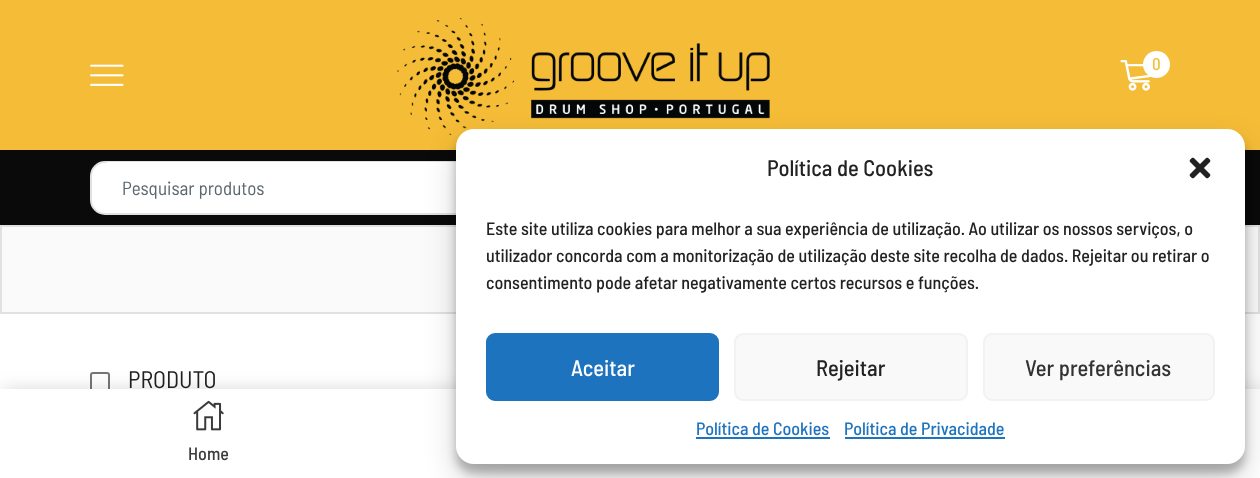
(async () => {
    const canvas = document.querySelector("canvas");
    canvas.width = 1260;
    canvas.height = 478;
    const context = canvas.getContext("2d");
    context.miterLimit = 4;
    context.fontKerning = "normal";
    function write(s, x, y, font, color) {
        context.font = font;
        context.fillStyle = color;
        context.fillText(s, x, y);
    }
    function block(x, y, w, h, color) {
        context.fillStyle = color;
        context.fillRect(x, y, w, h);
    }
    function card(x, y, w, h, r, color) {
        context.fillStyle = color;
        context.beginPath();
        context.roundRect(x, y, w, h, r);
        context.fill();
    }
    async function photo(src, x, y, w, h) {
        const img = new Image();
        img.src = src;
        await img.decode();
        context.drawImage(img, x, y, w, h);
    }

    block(0, 0, 1260, 478, "rgb(255, 255, 255)");
    block(0, 0, 1260, 150, "rgb(244, 188, 55)");
    await photo("media/1.png", 90, 64, 34, 22);
    await photo("media/2.png", 397, 18, 373, 117);
    await photo("media/3.png", 1120, 60, 32, 31);
    context.fillStyle = "rgb(255, 255, 255)";
    context.beginPath();
    context.arc(1156.5, 64.5, 13.5, 0, Math.PI * 2);
    context.fill();
    write("0", 1152, 70, "500 17px Barlow Semi Condensed", "rgb(244, 188, 55)");
    block(0, 150, 1260, 75, "rgb(10, 10, 10)");
    context.fillStyle = "rgb(255, 255, 255)";
    context.beginPath();
    context.roundRect(91, 162, 1078, 52, 14);
    context.fill();
    context.strokeStyle = "rgb(225, 225, 225)";
    context.lineWidth = 2;
    context.stroke();
    block(107, 162, 349, 1, "rgb(255, 255, 255)");
    write("Pesquisar produtos", 122, 195, "19px Barlow Semi Condensed", "rgb(92, 103, 109)");
    context.fillStyle = "rgb(250, 250, 250)";
    context.beginPath();
    context.rect(1, 226, 1258, 87);
    context.fill();
    context.stroke();
    context.beginPath();
    context.roundRect(91, 373, 18, 18, 2);
    context.strokeStyle = "rgb(118, 118, 118)";
    context.stroke();
    write("PRODUTO", 128, 388, "24px Barlow Semi Condensed", "rgb(34, 34, 34)");
    context.fillStyle = "rgba(0, 0, 0, 0.15)";
    context.filter = "blur(9px)";
    context.beginPath();
    context.rect(3, 389, 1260, 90);
    context.fill();
    context.filter = "none";
    block(0, 389, 1260, 89, "rgb(255, 255, 255)");
    await photo("media/4.png", 193, 400, 31, 31);
    write("Home", 188, 460, "500 18px Barlow Semi Condensed", "rgb(58, 58, 58)");
    context.fillStyle = "rgba(0, 0, 0, 0.23)";
    context.filter = "blur(4.5px)";
    context.beginPath();
    context.roundRect(456, 138, 789, 335, 18);
    context.fill();
    context.filter = "none";
    context.fillStyle = "rgba(0, 0, 0, 0.19)";
    context.filter = "blur(15px)";
    context.beginPath();
    context.roundRect(456, 144, 789, 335, 18);
    context.fill();
    context.filter = "none";
    card(456, 129, 789, 335, 18, "rgb(255, 255, 255)");
    write("Política de Cookies", 767, 176, "500 22.5px Barlow Semi Condensed", "rgb(34, 34, 34)");
    await photo("media/5.png", 1189, 157, 22, 22);
    write("Este site utiliza cookies para melhor a sua experiência de utilização. Ao utilizar os nossos serviços, o", 486, 235, "500 18px Barlow Semi Condensed", "rgb(34, 34, 34)");
    write("utilizador concorda com a monitorização de utilização deste site recolha de dados. Rejeitar ou retirar o", 486, 262, "500 18px Barlow Semi Condensed", "rgb(34, 34, 34)");
    write("consentimento pode afetar negativamente certos recursos e funções.", 486, 289, "500 18px Barlow Semi Condensed", "rgb(34, 34, 34)");
    context.fillStyle = "rgb(30, 115, 190)";
    context.beginPath();
    context.roundRect(487, 334, 231, 66, 8);
    context.fill();
    context.strokeStyle = "rgb(30, 115, 190)";
    context.stroke();
    write("Aceitar", 571, 376, "500 22.5px Barlow Semi Condensed", "rgb(255, 255, 255)");
    context.fillStyle = "rgb(249, 249, 249)";
    context.beginPath();
    context.roundRect(735, 334, 232, 66, 8);
    context.fill();
    context.strokeStyle = "rgb(242, 242, 242)";
    context.stroke();
    write("Rejeitar", 816, 376, "500 22.5px Barlow Semi Condensed", "rgb(34, 34, 34)");
    context.fillStyle = "rgb(249, 249, 249)";
    context.beginPath();
    context.roundRect(984, 334, 230, 66, 8);
    context.fill();
    context.stroke();
    write("Ver preferências", 1025, 376, "500 22.5px Barlow Semi Condensed", "rgb(51, 51, 51)");
    write("Política de Cookies", 696, 435, "500 18px Barlow Semi Condensed", "rgb(30, 115, 190)");
    block(696, 437, 134, 2, "rgb(30, 115, 190)");
    write("Política de Privacidade", 844, 435, "500 18px Barlow Semi Condensed", "rgb(30, 115, 190)");
    block(845, 437, 160, 2, "rgb(30, 115, 190)");
})();
